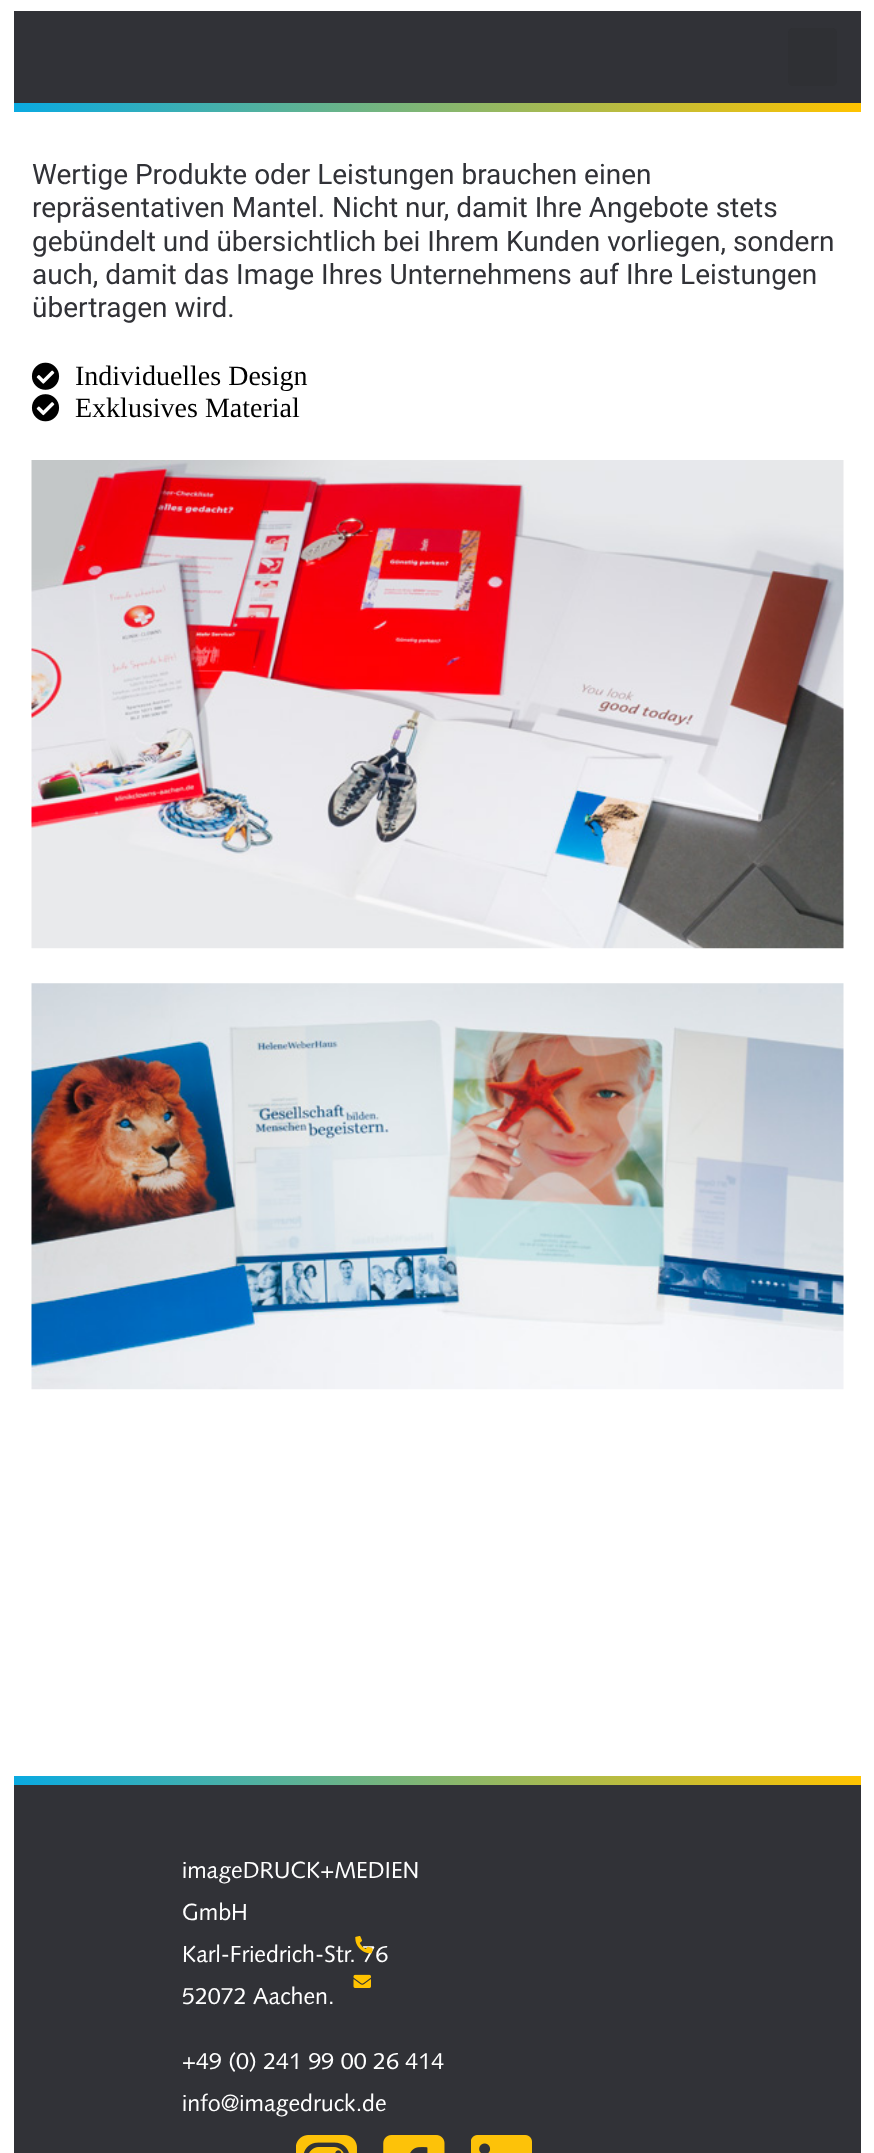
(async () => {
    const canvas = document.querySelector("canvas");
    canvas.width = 874;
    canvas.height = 2153;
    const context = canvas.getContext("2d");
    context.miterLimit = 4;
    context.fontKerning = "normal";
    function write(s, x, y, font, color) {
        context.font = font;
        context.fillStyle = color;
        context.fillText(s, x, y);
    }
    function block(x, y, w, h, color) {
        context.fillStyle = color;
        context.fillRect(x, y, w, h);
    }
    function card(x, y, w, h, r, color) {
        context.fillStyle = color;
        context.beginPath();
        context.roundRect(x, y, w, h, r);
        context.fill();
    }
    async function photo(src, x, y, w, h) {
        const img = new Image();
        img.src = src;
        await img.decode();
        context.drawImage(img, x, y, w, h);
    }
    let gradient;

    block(0, 0, 874, 2153, "rgb(255, 255, 255)");
    block(14, 11, 847, 92, "rgb(49, 50, 55)");
    card(788, 28, 49, 58, 5, "rgb(47, 48, 52)");
    gradient = context.createLinearGradient(14, 108, 861, 108);
    gradient.addColorStop(0, "rgb(10, 170, 225)");
    gradient.addColorStop(1, "rgb(255, 195, 0)");
    context.fillStyle = gradient;
    context.fillRect(14, 103, 847, 9);
    write("Wertige Produkte oder Leistungen brauchen einen", 32, 184, "28px Roboto", "rgb(49, 50, 55)");
    write("repräsentativen Mantel. Nicht nur, damit Ihre Angebote stets", 32, 217, "28px Roboto", "rgb(49, 50, 55)");
    write("gebündelt und übersichtlich bei Ihrem Kunden vorliegen, sondern", 32, 251, "28px Roboto", "rgb(49, 50, 55)");
    write("auch, damit das Image Ihres Unternehmens auf Ihre Leistungen", 32, 284, "28px Roboto", "rgb(49, 50, 55)");
    write("übertragen wird.", 32, 317, "28px Roboto", "rgb(49, 50, 55)");
    await photo("media/1.png", 31, 362, 29, 28);
    write("Individuelles Design", 75, 385, "28px Liberation Serif", "rgb(0, 0, 0)");
    await photo("media/2.png", 31, 394, 29, 28);
    write("Exklusives Material", 75, 417, "28px Liberation Serif", "rgb(0, 0, 0)");
    await photo("media/3.png", 31, 460, 813, 489);
    await photo("media/4.png", 31, 983, 813, 407);
    gradient = context.createLinearGradient(14, 1781, 861, 1781);
    gradient.addColorStop(0, "rgb(10, 170, 225)");
    gradient.addColorStop(1, "rgb(255, 195, 0)");
    context.fillStyle = gradient;
    context.fillRect(14, 1776, 847, 9);
    block(14, 1785, 847, 368, "rgb(49, 50, 55)");
    write("imageDRUCK+MEDIEN", 182, 1878, "23.25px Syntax", "rgb(255, 255, 255)");
    write("GmbH", 182, 1920, "23.25px Syntax", "rgb(255, 255, 255)");
    write("Karl-Friedrich-Str. 76", 182, 1962, "23.25px Syntax", "rgb(255, 255, 255)");
    write("52072 Aachen.", 182, 2004, "23.25px Syntax", "rgb(255, 255, 255)");
    write("+49 (0) 241 99 00 26 414", 182, 2069, "23.25px Syntax", "rgb(255, 255, 255)");
    write("info@imagedruck.de", 182, 2111, "23.25px Syntax", "rgb(255, 255, 255)");
    await photo("media/5.png", 355, 1936, 18, 18);
    await photo("media/6.png", 353, 1974, 18, 14);
    await photo("media/7.png", 296, 2135, 61, 18);
    await photo("media/8.png", 383, 2135, 62, 18);
    await photo("media/9.png", 471, 2135, 61, 18);
})();
